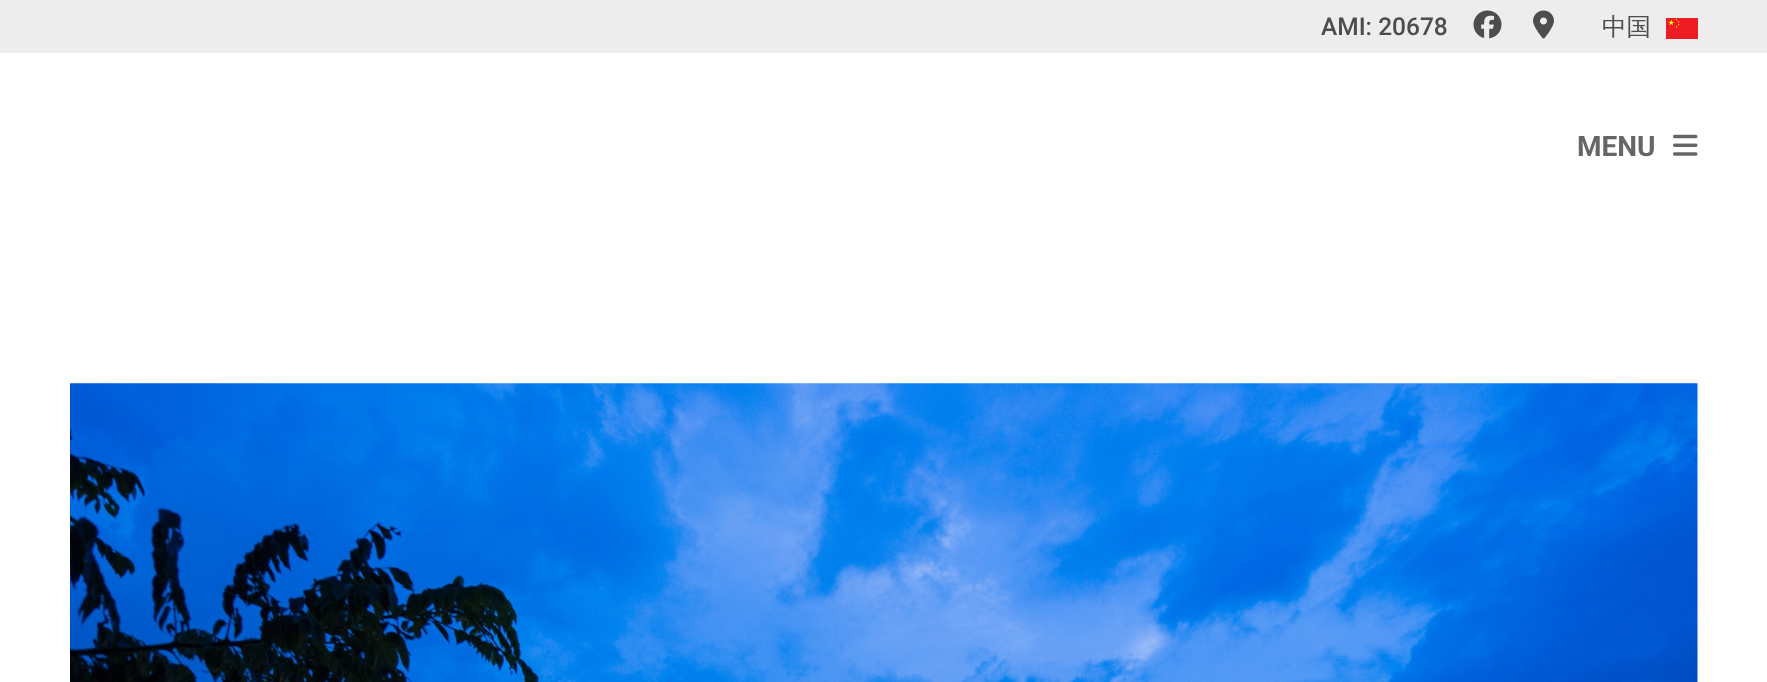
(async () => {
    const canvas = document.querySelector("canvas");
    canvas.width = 1767;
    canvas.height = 682;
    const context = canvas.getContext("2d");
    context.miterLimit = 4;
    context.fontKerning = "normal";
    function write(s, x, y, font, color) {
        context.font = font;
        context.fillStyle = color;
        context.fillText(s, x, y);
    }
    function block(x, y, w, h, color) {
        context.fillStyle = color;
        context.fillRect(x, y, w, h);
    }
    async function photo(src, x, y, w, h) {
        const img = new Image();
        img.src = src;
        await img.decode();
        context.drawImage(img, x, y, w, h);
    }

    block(0, 0, 1767, 682, "rgb(255, 255, 255)");
    block(0, 0, 1767, 53, "rgb(237, 237, 237)");
    write("AMI: 20678", 1321, 35, "500 24.5px Roboto", "rgb(77, 77, 77)");
    await photo("media/1.png", 1473, 10, 29, 29);
    await photo("media/2.png", 1533, 10, 21, 29);
    write("中国", 1602, 35, "500 24.5px WenQuanYi Zen Hei", "rgb(77, 77, 77)");
    await photo("media/3.png", 1666, 18, 32, 21);
    write("MENU", 1577, 156, "bold 28px Roboto", "rgb(102, 102, 102)");
    await photo("media/4.png", 1673, 134, 25, 22);
    await photo("media/5.png", 70, 383, 1628, 299);
})();
